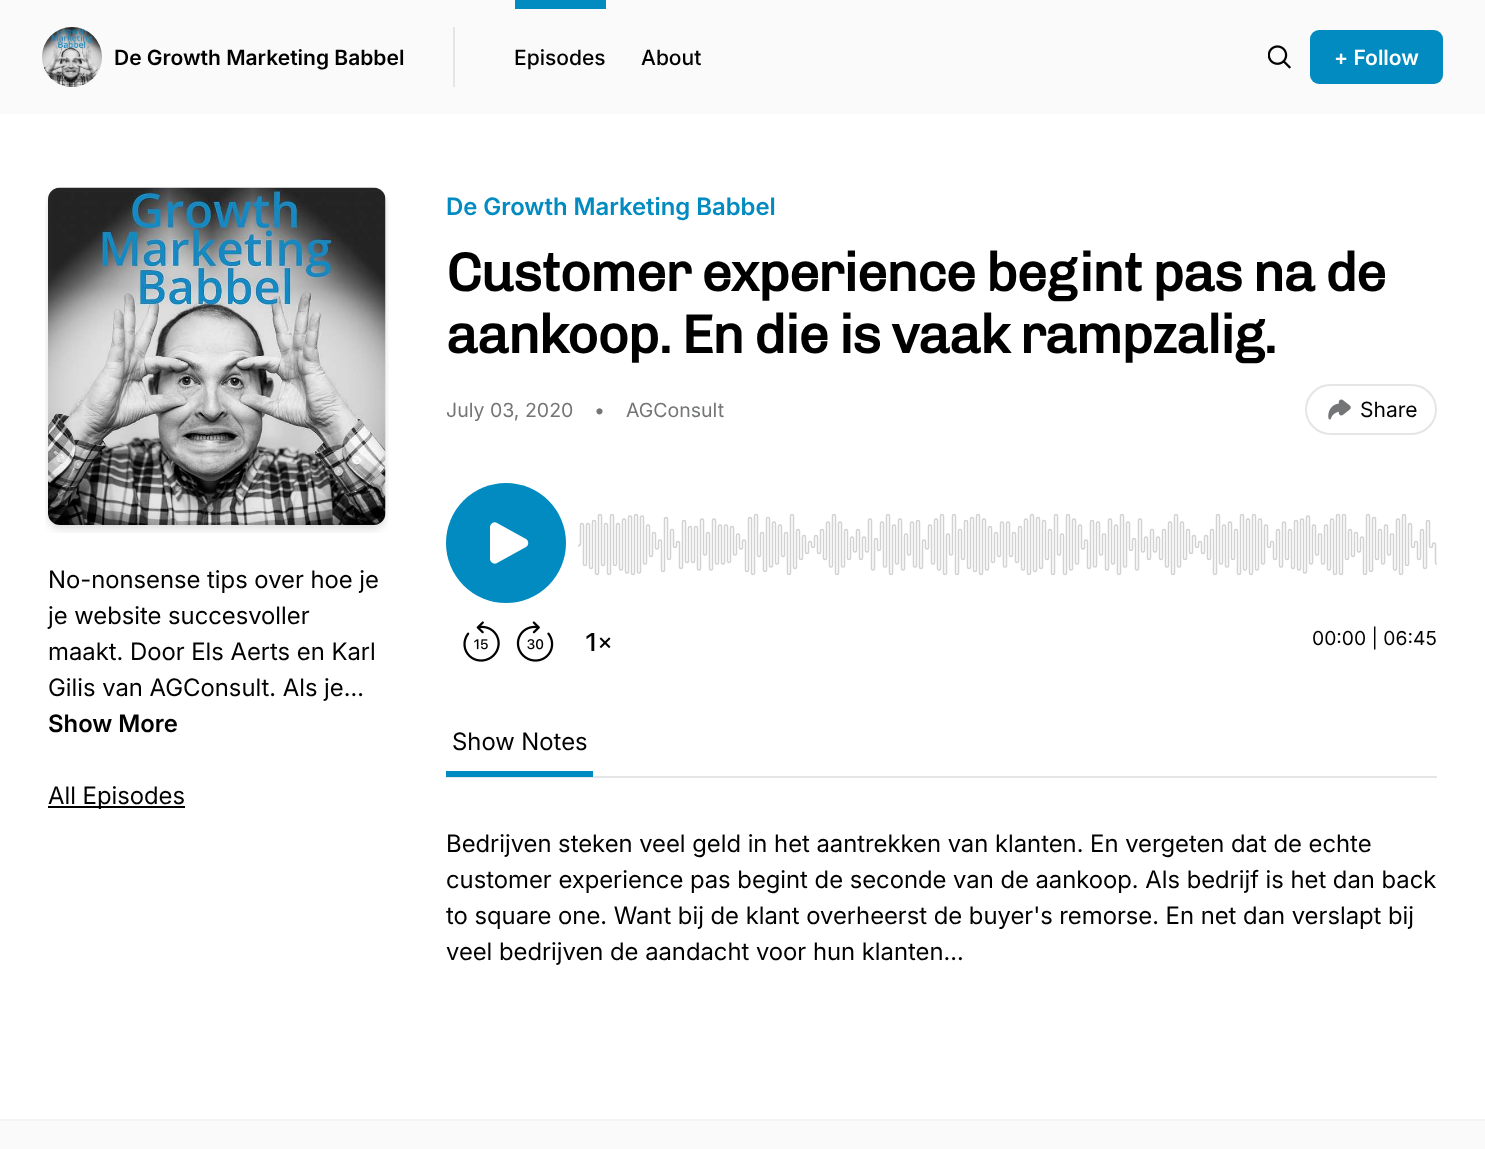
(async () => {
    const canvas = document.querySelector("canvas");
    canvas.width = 1485;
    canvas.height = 1149;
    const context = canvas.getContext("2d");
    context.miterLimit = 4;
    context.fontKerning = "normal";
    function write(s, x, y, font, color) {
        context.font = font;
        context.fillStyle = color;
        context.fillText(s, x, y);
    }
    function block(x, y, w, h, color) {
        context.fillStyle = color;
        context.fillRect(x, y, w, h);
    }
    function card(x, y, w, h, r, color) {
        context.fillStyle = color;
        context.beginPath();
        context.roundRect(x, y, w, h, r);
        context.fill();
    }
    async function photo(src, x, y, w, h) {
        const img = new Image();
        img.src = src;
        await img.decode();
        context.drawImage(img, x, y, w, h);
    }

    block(0, 0, 1485, 1149, "rgb(255, 255, 255)");
    block(0, 0, 1485, 114, "rgb(250, 250, 250)");
    block(453, 27, 2, 60, "rgb(228, 229, 230)");
    await photo("media/1.png", 42, 27, 60, 60);
    write("De Growth Marketing Babbel", 114, 65, "600 21px Inter", "rgb(0, 0, 0)");
    block(515, 0, 91, 9, "rgb(2, 139, 192)");
    write("Episodes", 514, 65, "500 21px Inter", "rgb(0, 0, 0)");
    write("About", 641, 65, "500 21px Inter", "rgb(0, 0, 0)");
    await photo("media/2.png", 1268, 45, 23, 24);
    card(1310, 30, 133, 54, 9, "rgb(2, 139, 192)");
    write("+ Follow", 1334, 65, "600 21px Inter", "rgb(255, 255, 255)");
    await photo("media/3.png", 45, 187, 344, 346);
    write("No-nonsense tips over hoe je", 48, 588, "24px Inter", "rgb(0, 0, 0)");
    write("je website succesvoller", 48, 624, "24px Inter", "rgb(0, 0, 0)");
    write("maakt. Door Els Aerts en Karl", 48, 660, "24px Inter", "rgb(0, 0, 0)");
    write("Gilis van AGConsult. Als je…", 48, 696, "24px Inter", "rgb(0, 0, 0)");
    write("Show More", 48, 732, "600 24px 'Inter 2'", "rgb(0, 0, 0)");
    block(48, 806, 137, 2, "rgb(0, 0, 0)");
    write("All Episodes", 48, 804, "24px Inter", "rgb(0, 0, 0)");
    write("De Growth Marketing Babbel", 446, 215, "600 24px 'Inter 2'", "rgb(2, 139, 192)");
    context.letterSpacing = "-1.35px";
    write("Customer experience begint pas na de", 446, 291, "bold 54px Chivo", "rgb(0, 0, 0)");
    write("aankoop. En die is vaak rampzalig.", 446, 353, "bold 54px Chivo", "rgb(0, 0, 0)");
    context.letterSpacing = "0px";
    write("July 03, 2020", 446, 417, "19.5px 'Inter 2'", "rgb(116, 117, 118)");
    write("•", 594, 417, "19.5px 'Inter 2'", "rgb(116, 117, 118)");
    write("AGConsult", 626, 417, "19.5px 'Inter 2'", "rgb(116, 117, 118)");
    context.beginPath();
    context.roundRect(1306, 385, 130, 49, 24.5);
    context.strokeStyle = "rgb(228, 229, 230)";
    context.lineWidth = 2;
    context.stroke();
    await photo("media/4.png", 1328, 399, 23, 21);
    write("Share", 1360, 417, "21px 'Inter 2'", "rgb(0, 0, 0)");
    await photo("media/5.png", 463, 621, 37, 41);
    await photo("media/6.png", 516, 621, 38, 41);
    await photo("media/7.png", 586, 633, 25, 18);
    context.fillStyle = "rgb(2, 139, 192)";
    context.beginPath();
    context.arc(506, 543, 60, 0, Math.PI * 2);
    context.fill();
    context.fillStyle = "rgb(255, 255, 255)";
    context.beginPath();
    context.moveTo(490, 527);
    context.bezierCurveTo(490, 524, 494, 521, 497, 523);
    context.lineTo(526, 539);
    context.bezierCurveTo(529, 541, 529, 545, 526, 547);
    context.lineTo(497, 563);
    context.bezierCurveTo(494, 565, 490, 562, 490, 559);
    context.closePath();
    context.fill("evenodd");
    await photo("media/8.png", 578, 513, 859, 63);
    write("00:00 | 06:45", 1312, 645, "19.25px 'Inter 2'", "rgb(0, 0, 0)");
    block(446, 776, 991, 2, "rgb(228, 229, 230)");
    block(446, 771, 147, 6, "rgb(2, 139, 192)");
    write("Show Notes", 452, 750, "24px Inter", "rgb(0, 0, 0)");
    write("Bedrijven steken veel geld in het aantrekken van klanten. En vergeten dat de echte", 446, 852, "24px Inter", "rgb(0, 0, 0)");
    write("customer experience pas begint de seconde van de aankoop. Als bedrijf is het dan back", 446, 888, "24px Inter", "rgb(0, 0, 0)");
    write("to square one. Want bij de klant overheerst de buyer's remorse. En net dan verslapt bij", 446, 924, "24px Inter", "rgb(0, 0, 0)");
    write("veel bedrijven de aandacht voor hun klanten...", 446, 960, "24px Inter", "rgb(0, 0, 0)");
    block(0, 1121, 1485, 28, "rgb(250, 250, 250)");
    block(0, 1119, 1485, 2, "rgb(244, 244, 244)");
})();
